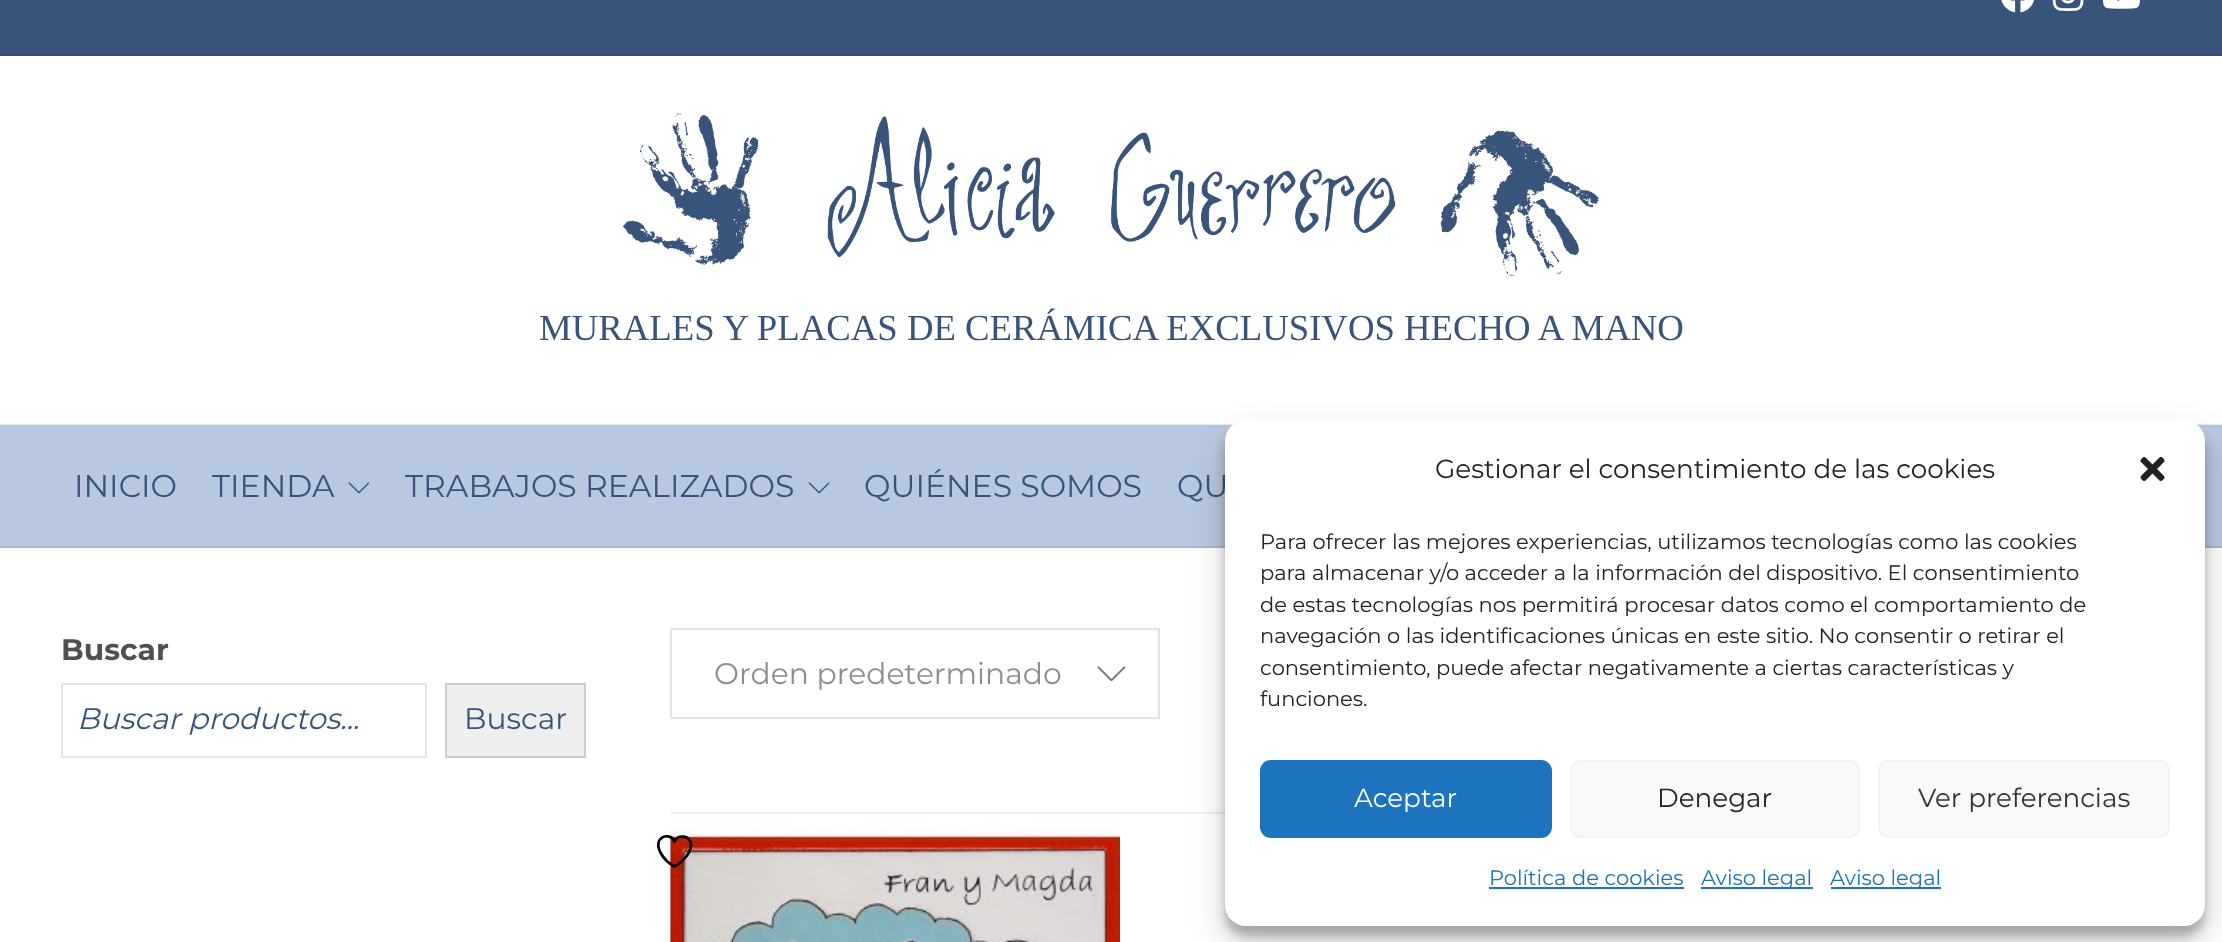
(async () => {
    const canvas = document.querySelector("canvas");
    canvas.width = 2222;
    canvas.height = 942;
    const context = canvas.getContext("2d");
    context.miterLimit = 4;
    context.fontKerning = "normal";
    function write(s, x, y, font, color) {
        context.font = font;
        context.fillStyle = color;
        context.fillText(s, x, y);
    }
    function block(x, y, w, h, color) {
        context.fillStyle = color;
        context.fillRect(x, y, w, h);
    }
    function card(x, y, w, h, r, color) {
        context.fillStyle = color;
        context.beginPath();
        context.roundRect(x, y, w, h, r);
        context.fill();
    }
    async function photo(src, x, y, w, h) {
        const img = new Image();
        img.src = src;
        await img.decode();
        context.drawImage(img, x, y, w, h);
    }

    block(0, 0, 2222, 942, "rgb(255, 255, 255)");
    block(0, 0, 2222, 54, "rgb(57, 84, 122)");
    block(0, 54, 2222, 2, "rgb(52, 77, 112)");
    await photo("media/1.png", 2001, 0, 33, 13);
    await photo("media/2.png", 2052, 0, 32, 11);
    await photo("media/3.png", 2102, 0, 38, 9);
    block(0, 424, 2222, 1, "rgb(235, 235, 235)");
    await photo("media/4.png", 622, 113, 977, 163);
    write("MURALES Y PLACAS DE CERÁMICA EXCLUSIVOS HECHO A MANO", 539, 340, "36.75px Liberation Serif", "rgb(57, 84, 122)");
    block(0, 425, 2222, 121, "rgb(184, 200, 224)");
    block(0, 546, 2222, 2, "rgb(169, 184, 206)");
    write("INICIO", 74, 497, "100 31.5px Montserrat", "rgb(57, 84, 122)");
    write("TIENDA", 212, 497, "100 31.5px Montserrat", "rgb(57, 84, 122)");
    await photo("media/5.png", 348, 482, 22, 12);
    write("TRABAJOS REALIZADOS", 405, 497, "100 31.5px Montserrat", "rgb(57, 84, 122)");
    await photo("media/6.png", 808, 482, 22, 12);
    write("QUIÉNES SOMOS", 864, 497, "100 31.5px Montserrat", "rgb(57, 84, 122)");
    write("QU", 1177, 497, "100 31.5px Montserrat", "rgb(57, 84, 122)");
    write("Buscar", 61, 660, "bold 29.75px Montserrat", "rgb(80, 80, 80)");
    context.strokeStyle = "rgb(229, 229, 229)";
    context.lineWidth = 2;
    context.strokeRect(62, 684, 364, 73);
    write("Buscar productos...", 77, 729, "italic 100 29.75px Montserrat", "rgb(57, 84, 122)");
    context.fillStyle = "rgb(239, 239, 239)";
    context.beginPath();
    context.rect(446, 684, 139, 73);
    context.fill();
    context.strokeStyle = "rgb(204, 204, 204)";
    context.stroke();
    write("Buscar", 464, 729, "100 29.75px Montserrat", "rgb(57, 84, 122)");
    context.strokeStyle = "rgb(227, 227, 227)";
    context.strokeRect(671, 629, 488, 89);
    write("Orden predeterminado", 714, 684, "100 29.75px Montserrat", "rgb(141, 141, 141)");
    await photo("media/7.png", 1097, 666, 29, 16);
    block(670, 812, 555, 2, "rgb(240, 240, 240)");
    await photo("media/8.png", 670, 817, 450, 125);
    context.beginPath();
    context.moveTo(691, 844.5);
    context.bezierCurveTo(691, 835.5, 678, 833.5, 674.5, 841.5);
    context.bezierCurveTo(670, 831, 651.5, 837, 661, 853.5);
    context.bezierCurveTo(664, 859, 669, 863.5, 674.5, 866.5);
    context.bezierCurveTo(674.5, 866.5, 691, 857.5, 691, 844.5);
    context.closePath();
    context.strokeStyle = "rgb(0, 0, 0)";
    context.lineWidth = 2.7;
    context.lineCap = "round";
    context.lineJoin = "round";
    context.stroke();
    context.fillStyle = "rgba(0, 0, 0, 0.23)";
    context.filter = "blur(5px)";
    context.beginPath();
    context.roundRect(1225, 431, 980, 505, 21);
    context.fill();
    context.filter = "none";
    context.fillStyle = "rgba(0, 0, 0, 0.19)";
    context.filter = "blur(17.5px)";
    context.beginPath();
    context.roundRect(1225, 438, 980, 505, 21);
    context.fill();
    context.filter = "none";
    card(1225, 420, 980, 506, 21, "rgb(255, 255, 255)");
    write("Gestionar el consentimiento de las cookies", 1435, 478, "100 26.25px Montserrat", "rgb(34, 34, 34)");
    await photo("media/9.png", 2140, 457, 25, 24);
    write("Para ofrecer las mejores experiencias, utilizamos tecnologías como las cookies", 1260, 549, "100 21px Montserrat", "rgb(34, 34, 34)");
    write("para almacenar y/o acceder a la información del dispositivo. El consentimiento", 1260, 580, "100 21px Montserrat", "rgb(34, 34, 34)");
    write("de estas tecnologías nos permitirá procesar datos como el comportamiento de", 1260, 612, "100 21px Montserrat", "rgb(34, 34, 34)");
    write("navegación o las identificaciones únicas en este sitio. No consentir o retirar el", 1260, 643, "100 21px Montserrat", "rgb(34, 34, 34)");
    write("consentimiento, puede afectar negativamente a ciertas características y", 1260, 675, "100 21px Montserrat", "rgb(34, 34, 34)");
    write("funciones.", 1260, 706, "100 21px Montserrat", "rgb(34, 34, 34)");
    context.fillStyle = "rgb(30, 115, 190)";
    context.beginPath();
    context.roundRect(1261, 761, 290, 76, 10);
    context.fill();
    context.strokeStyle = "rgb(30, 115, 190)";
    context.lineWidth = 2;
    context.lineJoin = "miter";
    context.stroke();
    write("Aceptar", 1354, 807, "100 26.25px Montserrat", "rgb(255, 255, 255)");
    context.fillStyle = "rgb(249, 249, 249)";
    context.beginPath();
    context.roundRect(1571, 761, 288, 76, 10);
    context.fill();
    context.strokeStyle = "rgb(242, 242, 242)";
    context.stroke();
    write("Denegar", 1657, 807, "100 26.25px Montserrat", "rgb(34, 34, 34)");
    context.fillStyle = "rgb(249, 249, 249)";
    context.beginPath();
    context.roundRect(1879, 761, 290, 76, 10);
    context.fill();
    context.stroke();
    write("Ver preferencias", 1918, 807, "100 26.25px Montserrat", "rgb(51, 51, 51)");
    write("Política de cookies", 1489, 885, "100 21px Montserrat", "rgb(30, 115, 190)");
    block(1489, 887, 195, 2, "rgb(30, 115, 190)");
    block(1701, 887, 112, 2, "rgb(30, 115, 190)");
    write("Aviso legal", 1701, 885, "100 21px Montserrat", "rgb(30, 115, 190)");
    block(1831, 887, 110, 2, "rgb(30, 115, 190)");
    write("Aviso legal", 1830, 885, "100 21px Montserrat", "rgb(30, 115, 190)");
})();
